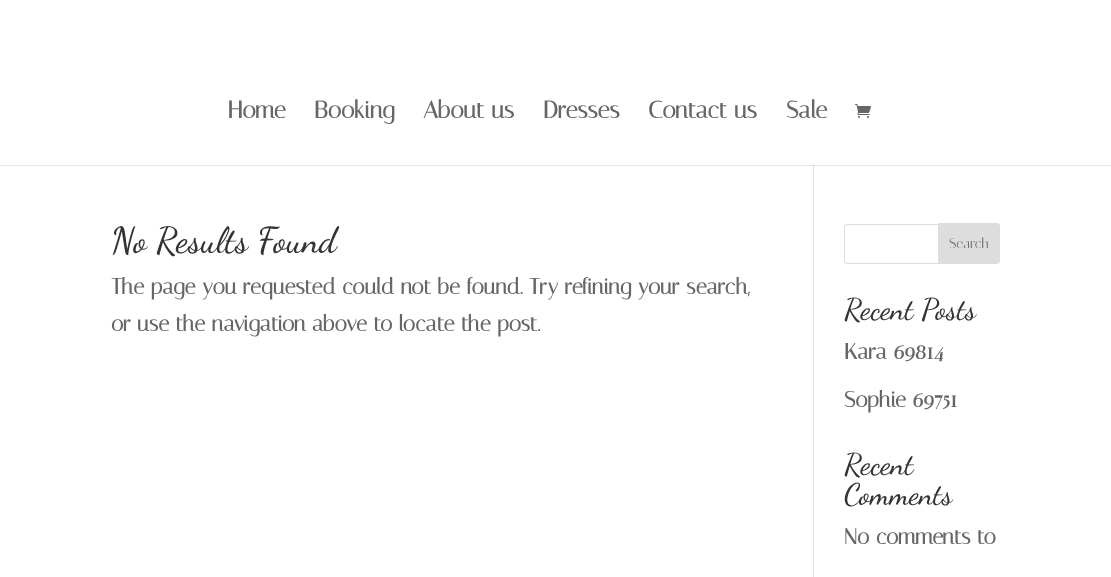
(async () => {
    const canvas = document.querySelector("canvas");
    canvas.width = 1111;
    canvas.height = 577;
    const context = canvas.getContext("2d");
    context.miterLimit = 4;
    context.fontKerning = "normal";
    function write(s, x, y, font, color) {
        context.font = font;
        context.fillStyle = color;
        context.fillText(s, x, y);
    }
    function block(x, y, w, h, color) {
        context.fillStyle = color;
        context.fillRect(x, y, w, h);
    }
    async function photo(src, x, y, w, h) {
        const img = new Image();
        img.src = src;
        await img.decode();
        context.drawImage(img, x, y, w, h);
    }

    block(0, 0, 1111, 577, "rgb(255, 255, 255)");
    block(0, 165, 1111, 1, "rgb(230, 230, 230)");
    write("Home", 228, 118, "bold 24px Italiana", "rgb(102, 102, 102)");
    write("Booking", 314, 118, "bold 24px Italiana", "rgb(102, 102, 102)");
    write("About us", 423, 118, "bold 24px Italiana", "rgb(102, 102, 102)");
    write("Dresses", 543, 118, "bold 24px Italiana", "rgb(102, 102, 102)");
    write("Contact us", 648, 118, "bold 24px Italiana", "rgb(102, 102, 102)");
    write("Sale", 786, 118, "bold 24px Italiana", "rgb(102, 102, 102)");
    await photo("media/1.png", 855, 104, 16, 14);
    block(813, 165, 1, 412, "rgb(226, 226, 226)");
    block(813, 165, 1, 1, "rgb(203, 203, 203)");
    write("No Results Found", 111, 252, "500 36px Dancing Script", "rgb(51, 51, 51)");
    write("The page you requested could not be found. Try refining your search,", 111, 294, "bold 22px Italiana", "rgb(102, 102, 102)");
    write("or use the navigation above to locate the post.", 111, 331, "bold 22px Italiana", "rgb(102, 102, 102)");
    context.beginPath();
    context.roundRect(844.5, 224.5, 155, 39, 2.5);
    context.strokeStyle = "rgb(221, 221, 221)";
    context.stroke();
    context.fillStyle = "rgb(221, 221, 221)";
    context.beginPath();
    context.roundRect(938.5, 223.5, 61, 39, [0, 2.5, 2.5, 0]);
    context.fill();
    context.stroke();
    write("Search", 949, 248, "14px Italiana", "rgb(102, 102, 102)");
    write("Recent Posts", 844, 319, "500 30px Dancing Script", "rgb(51, 51, 51)");
    write("Kara 69814", 844, 359, "bold 22px Italiana", "rgb(102, 102, 102)");
    write("Sophie 69751", 844, 407, "bold 22px Italiana", "rgb(102, 102, 102)");
    write("Recent", 844, 474, "500 30px Dancing Script", "rgb(51, 51, 51)");
    write("Comments", 844, 504, "500 30px Dancing Script", "rgb(51, 51, 51)");
    write("No comments to", 844, 544, "bold 22px Italiana", "rgb(102, 102, 102)");
})();
